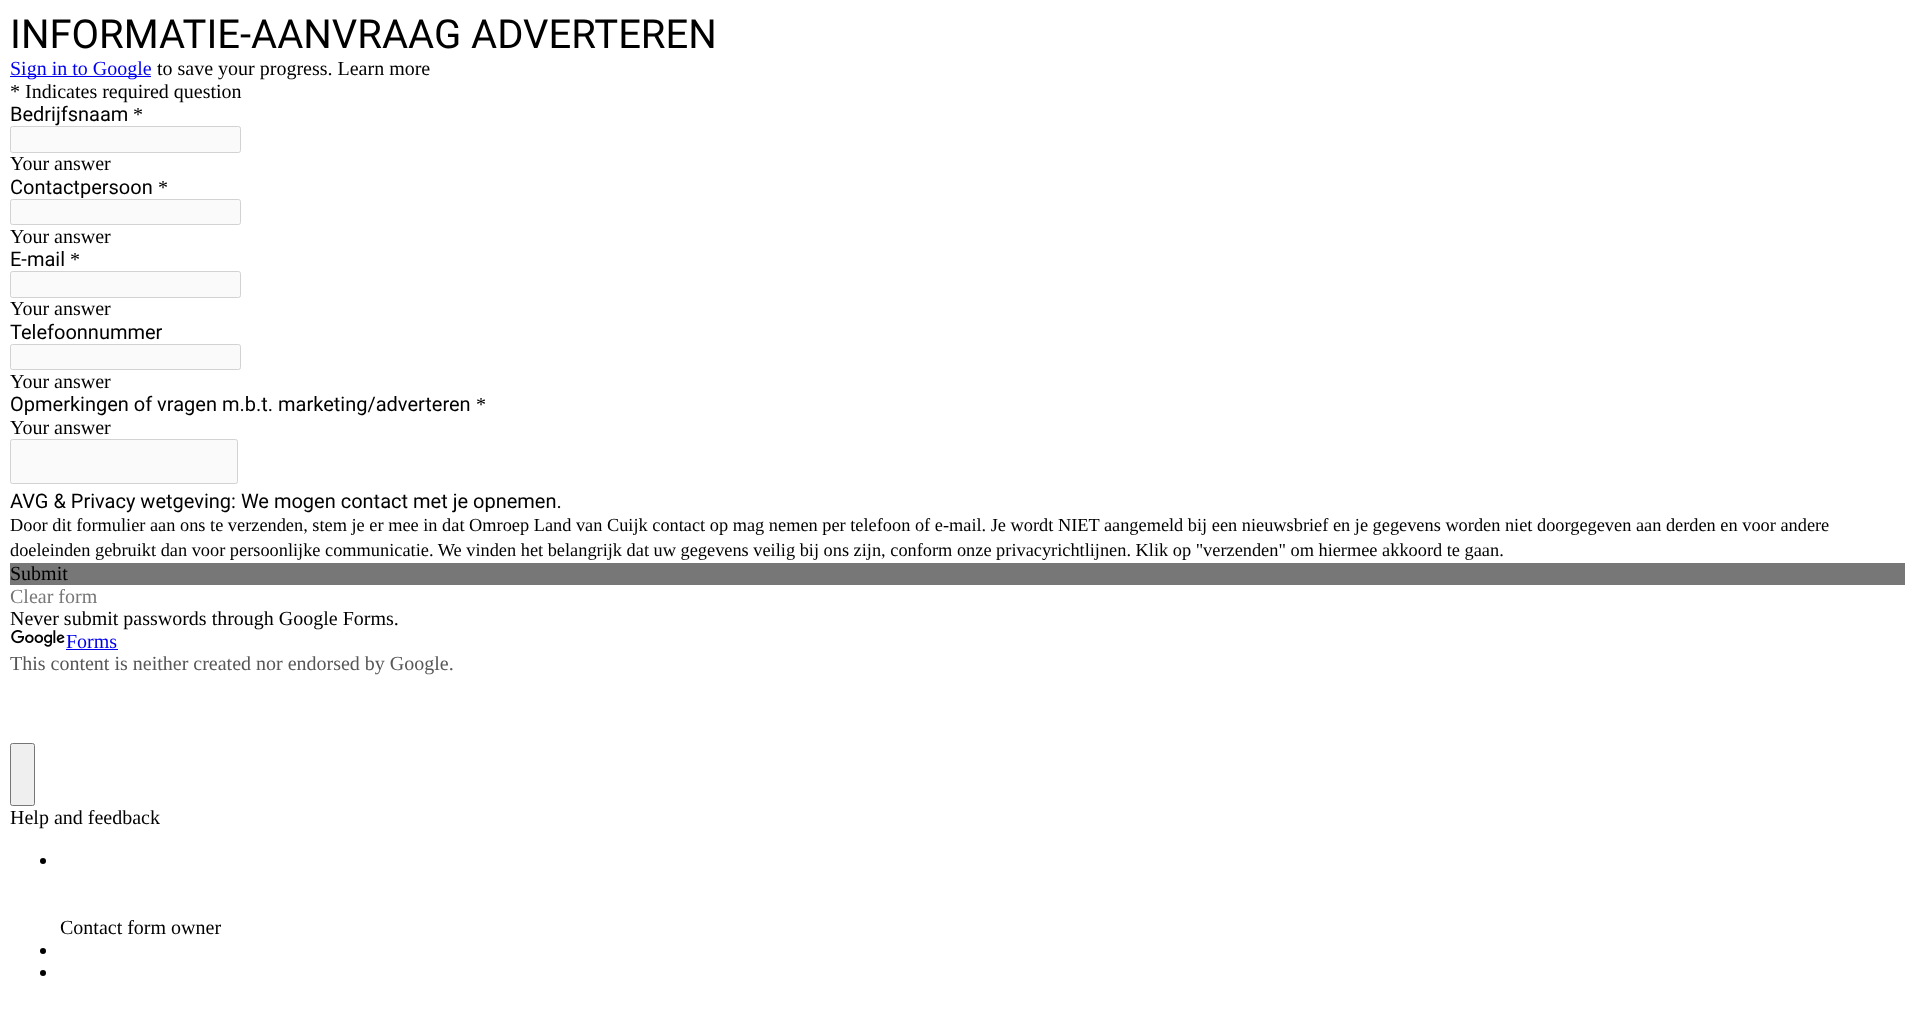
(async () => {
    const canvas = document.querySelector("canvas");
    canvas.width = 1915;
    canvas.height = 1036;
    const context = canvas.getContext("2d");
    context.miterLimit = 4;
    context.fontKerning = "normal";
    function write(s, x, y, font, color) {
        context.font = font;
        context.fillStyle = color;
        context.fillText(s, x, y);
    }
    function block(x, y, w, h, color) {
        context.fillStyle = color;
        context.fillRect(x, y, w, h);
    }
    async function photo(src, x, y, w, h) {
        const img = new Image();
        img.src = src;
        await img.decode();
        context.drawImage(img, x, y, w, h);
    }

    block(0, 0, 1915, 1036, "rgb(255, 255, 255)");
    write("INFORMATIE-AANVRAAG ADVERTEREN", 10, 48, "40px Roboto", "rgb(0, 0, 0)");
    block(10, 76, 141, 1, "rgb(0, 0, 238)");
    write("Sign in to Google", 10, 75, "20px Liberation Serif", "rgb(0, 0, 238)");
    write("to save your progress. Learn more", 157, 75, "20px Liberation Serif", "rgb(0, 0, 0)");
    write("* Indicates required question", 10, 98, "20px Liberation Serif", "rgb(0, 0, 0)");
    write("Bedrijfsnaam", 10, 121, "20px Roboto", "rgb(0, 0, 0)");
    write("*", 133, 121, "20px Liberation Serif", "rgb(0, 0, 0)");
    context.fillStyle = "rgb(250, 250, 250)";
    context.beginPath();
    context.roundRect(10.5, 126.5, 230, 26, 2);
    context.fill();
    context.strokeStyle = "rgb(210, 210, 210)";
    context.stroke();
    write("Your answer", 10, 170, "20px Liberation Serif", "rgb(0, 0, 0)");
    write("Contactpersoon", 10, 194, "20px Roboto", "rgb(0, 0, 0)");
    write("*", 158, 194, "20px Liberation Serif", "rgb(0, 0, 0)");
    context.fillStyle = "rgb(250, 250, 250)";
    context.beginPath();
    context.roundRect(10.5, 199.5, 230, 25, 2);
    context.fill();
    context.stroke();
    write("Your answer", 10, 243, "20px Liberation Serif", "rgb(0, 0, 0)");
    write("E-mail", 10, 266, "20px Roboto", "rgb(0, 0, 0)");
    write("*", 70, 266, "20px Liberation Serif", "rgb(0, 0, 0)");
    context.fillStyle = "rgb(250, 250, 250)";
    context.beginPath();
    context.roundRect(10.5, 271.5, 230, 26, 2);
    context.fill();
    context.stroke();
    write("Your answer", 10, 315, "20px Liberation Serif", "rgb(0, 0, 0)");
    write("Telefoonnummer", 10, 339, "20px Roboto", "rgb(0, 0, 0)");
    context.fillStyle = "rgb(250, 250, 250)";
    context.beginPath();
    context.roundRect(10.5, 344.5, 230, 25, 2);
    context.fill();
    context.stroke();
    write("Your answer", 10, 388, "20px Liberation Serif", "rgb(0, 0, 0)");
    write("Opmerkingen of vragen m.b.t. marketing/adverteren", 10, 411, "20px Roboto", "rgb(0, 0, 0)");
    write("*", 476, 411, "20px Liberation Serif", "rgb(0, 0, 0)");
    write("Your answer", 10, 434, "20px Liberation Serif", "rgb(0, 0, 0)");
    context.fillStyle = "rgb(250, 250, 250)";
    context.beginPath();
    context.roundRect(10.5, 439.5, 227, 44, 2);
    context.fill();
    context.stroke();
    write("AVG & Privacy wetgeving: We mogen contact met je opnemen.", 10, 508, "20px Roboto", "rgb(0, 0, 0)");
    write("Door dit formulier aan ons te verzenden, stem je er mee in dat Omroep Land van Cuijk contact op mag nemen per telefoon of e-mail. Je wordt NIET aangemeld bij een nieuwsbrief en je gegevens worden niet doorgegeven aan derden en voor andere", 10, 531, "18.33px Liberation Serif", "rgb(0, 0, 0)");
    write("doeleinden gebruikt dan voor persoonlijke communicatie. We vinden het belangrijk dat uw gegevens veilig bij ons zijn, conform onze privacyrichtlijnen. Klik op \"verzenden\" om hiermee akkoord te gaan.", 10, 556, "18.33px Liberation Serif", "rgb(0, 0, 0)");
    block(10, 563, 1895, 22, "rgb(119, 119, 119)");
    write("Submit", 10, 580, "20px Liberation Serif", "rgb(0, 0, 0)");
    write("Clear form", 10, 603, "20px Liberation Serif", "rgb(119, 119, 119)");
    write("Never submit passwords through Google Forms.", 10, 625, "20px Liberation Serif", "rgb(0, 0, 0)");
    await photo("media/1.png", 11, 630, 54, 17);
    write("Forms", 66, 648, "20px Liberation Serif", "rgb(0, 0, 238)");
    block(66, 649, 52, 1, "rgb(0, 0, 238)");
    write("This content is neither created nor endorsed by Google.", 10, 670, "20px Liberation Serif", "rgb(87, 87, 87)");
    context.fillStyle = "rgb(239, 239, 239)";
    context.beginPath();
    context.roundRect(10.5, 743.5, 24, 62, 2);
    context.fill();
    context.strokeStyle = "rgb(118, 118, 118)";
    context.stroke();
    write("Help and feedback", 10, 824, "20px Liberation Serif", "rgb(0, 0, 0)");
    context.beginPath();
    context.arc(43, 861, 3, 0, Math.PI * 2);
    context.fill();
    write("Contact form owner", 60, 934, "20px Liberation Serif", "rgb(0, 0, 0)");
    context.beginPath();
    context.arc(43, 951, 3, 0, Math.PI * 2);
    context.fill();
    context.beginPath();
    context.arc(43, 973, 3, 0, Math.PI * 2);
    context.fill();
})();
